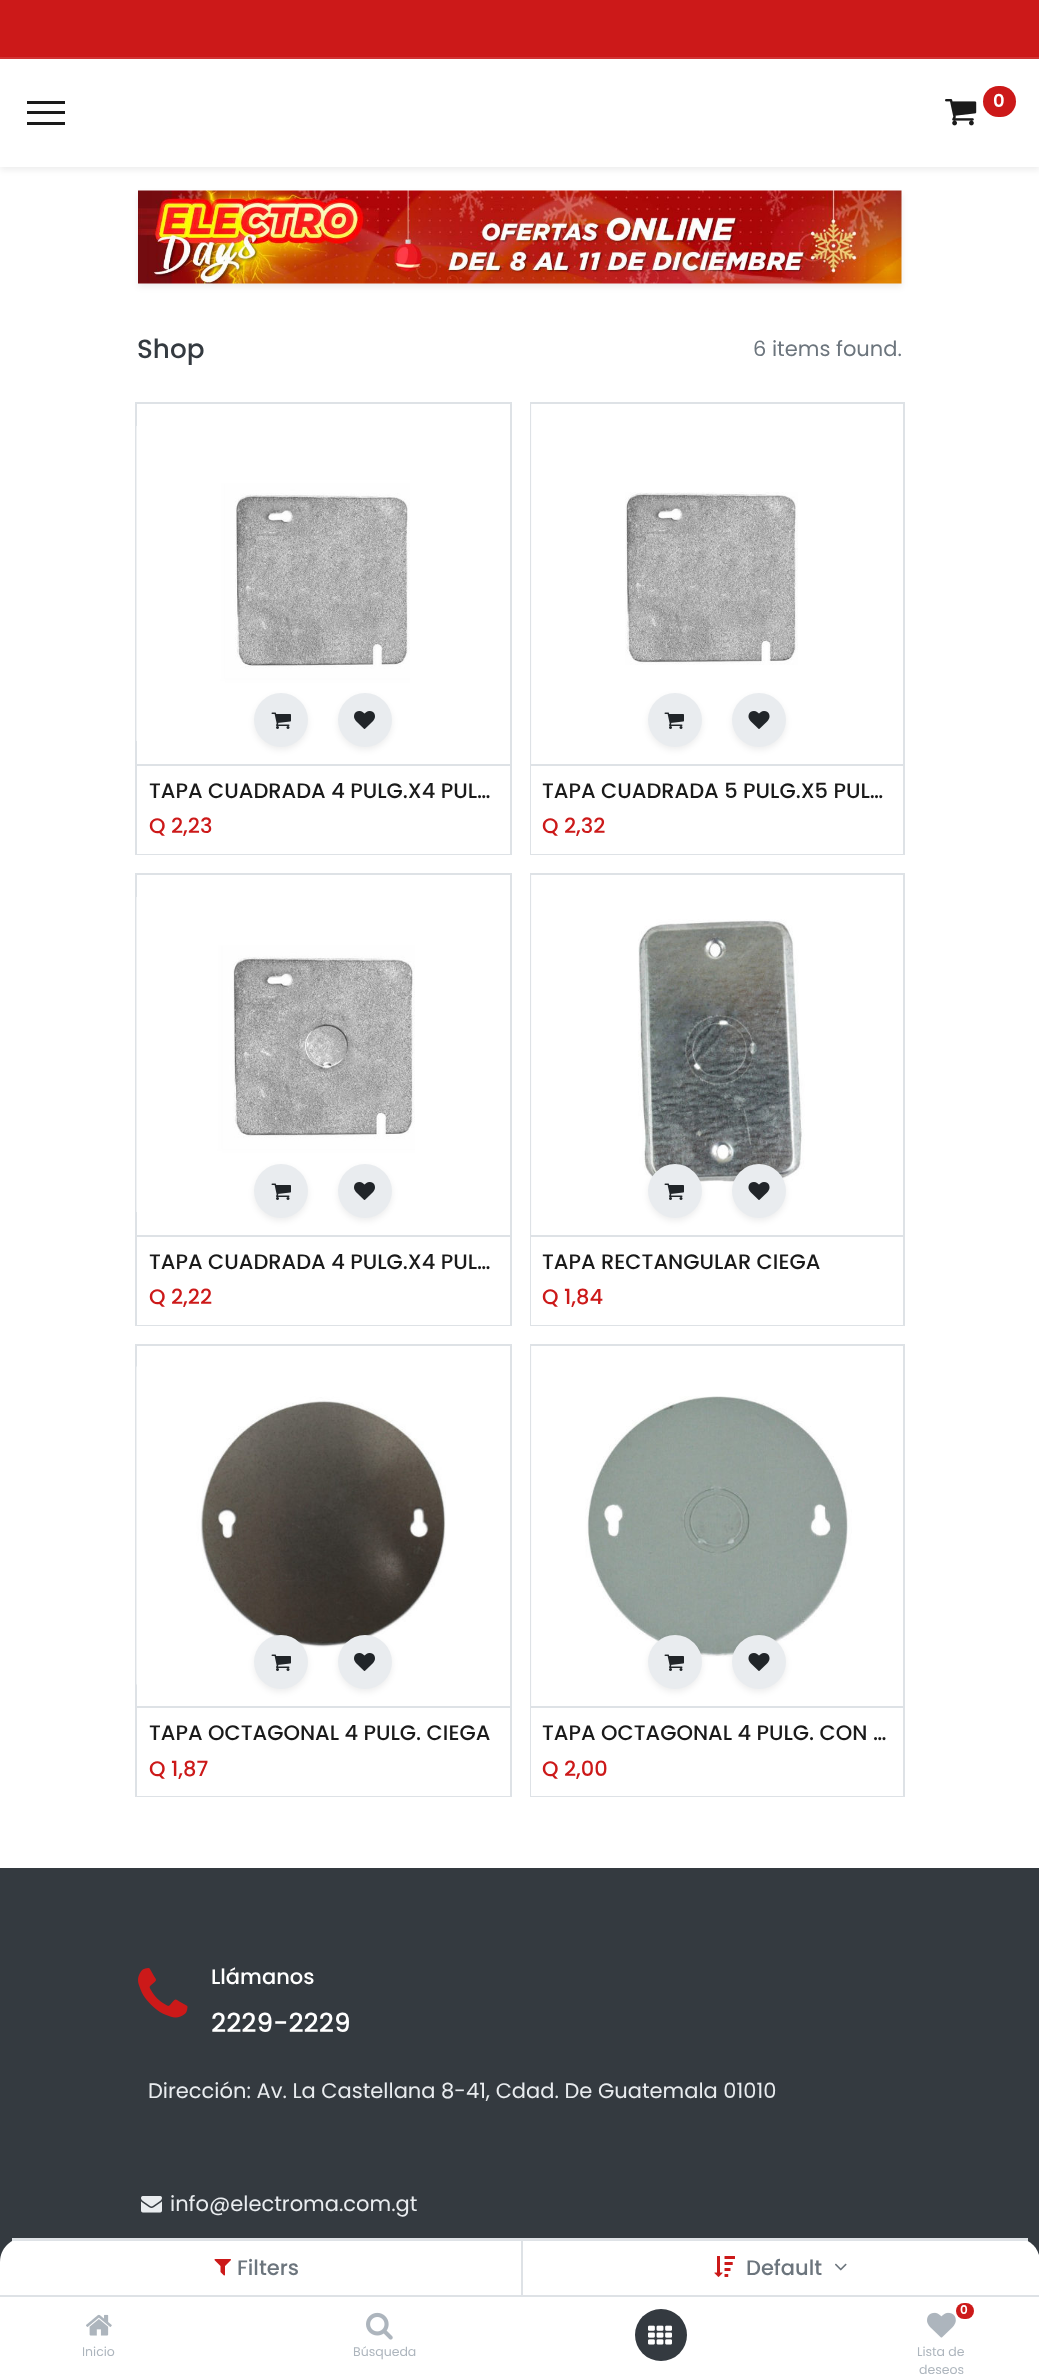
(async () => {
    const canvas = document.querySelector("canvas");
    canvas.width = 1039;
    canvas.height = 2379;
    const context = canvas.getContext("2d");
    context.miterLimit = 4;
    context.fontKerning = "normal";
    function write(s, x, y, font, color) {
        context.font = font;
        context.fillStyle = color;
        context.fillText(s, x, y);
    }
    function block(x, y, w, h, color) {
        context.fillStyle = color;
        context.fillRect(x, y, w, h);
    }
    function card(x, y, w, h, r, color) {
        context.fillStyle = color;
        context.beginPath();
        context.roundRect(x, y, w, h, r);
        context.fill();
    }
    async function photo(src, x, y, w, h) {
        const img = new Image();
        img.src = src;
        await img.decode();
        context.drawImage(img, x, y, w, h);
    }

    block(0, 0, 1039, 2379, "rgb(255, 255, 255)");
    block(0, 0, 1039, 57, "rgb(204, 25, 25)");
    block(0, 57, 1039, 2, "rgb(210, 53, 53)");
    context.fillStyle = "rgba(0, 0, 0, 0.07)";
    context.filter = "blur(3px)";
    context.beginPath();
    context.rect(0, 62, 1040, 108);
    context.fill();
    context.filter = "none";
    block(0, 59, 1039, 108, "rgb(255, 255, 255)");
    block(27, 101, 38, 3, "rgb(26, 26, 26)");
    block(27, 111, 38, 3, "rgb(26, 26, 26)");
    block(27, 122, 38, 3, "rgb(26, 26, 26)");
    await photo("media/1.png", 945, 99, 32, 27);
    card(983, 86, 33, 31, 15.5, "rgb(204, 25, 25)");
    write("0", 993, 107, "600 18px Poppins", "rgb(255, 255, 255)");
    context.fillStyle = "rgba(0, 0, 0, 0.07)";
    context.filter = "blur(3px)";
    context.beginPath();
    context.rect(138, 194, 764, 93);
    context.fill();
    context.filter = "none";
    await photo("media/2.png", 138, 190, 764, 94);
    write("Shop", 137, 358, "500 26.25px Poppins", "rgb(52, 58, 64)");
    write("6 items found.", 753, 356, "21px Poppins", "rgb(108, 117, 125)");
    context.strokeStyle = "rgb(222, 226, 230)";
    context.lineWidth = 2;
    context.strokeRect(136, 403, 375, 451);
    await photo("media/3.png", 136, 426, 274, 315);
    block(137, 853, 373, 1, "rgb(255, 255, 255)");
    block(137, 764, 373, 2, "rgb(222, 226, 230)");
    context.fillStyle = "rgba(0, 0, 0, 0.07)";
    context.filter = "blur(3px)";
    context.beginPath();
    context.roundRect(254, 696, 54, 54, 27);
    context.fill();
    context.filter = "none";
    context.fillStyle = "rgb(233, 236, 239)";
    context.beginPath();
    context.arc(281, 720, 27, 0, Math.PI * 2);
    context.fill();
    await photo("media/4.png", 271, 712, 20, 17);
    context.fillStyle = "rgba(0, 0, 0, 0.07)";
    context.filter = "blur(3px)";
    context.beginPath();
    context.roundRect(338, 696, 54, 54, 27);
    context.fill();
    context.filter = "none";
    context.fillStyle = "rgb(233, 236, 239)";
    context.beginPath();
    context.arc(365, 720, 27, 0, Math.PI * 2);
    context.fill();
    await photo("media/5.png", 354, 711, 21, 18);
    write("TAPA CUADRADA 4 PULG.X4 PUL…", 149, 798, "500 21px Poppins", "rgb(26, 26, 26)");
    write("Q 2,23", 149, 833, "500 21px Poppins", "rgb(204, 25, 25)");
    context.strokeRect(531, 403, 373, 451);
    block(531, 404, 1, 360, "rgba(255, 255, 255, 0.9)");
    await photo("media/6.png", 625, 492, 173, 173);
    block(531, 766, 372, 88, "rgb(255, 255, 255)");
    block(531, 764, 372, 2, "rgb(222, 226, 230)");
    context.fillStyle = "rgba(0, 0, 0, 0.07)";
    context.filter = "blur(3px)";
    context.beginPath();
    context.roundRect(648, 696, 54, 54, 27);
    context.fill();
    context.filter = "none";
    context.fillStyle = "rgb(233, 236, 239)";
    context.beginPath();
    context.arc(675, 720, 27, 0, Math.PI * 2);
    context.fill();
    await photo("media/4.png", 664, 712, 20, 17);
    context.fillStyle = "rgba(0, 0, 0, 0.07)";
    context.filter = "blur(3px)";
    context.beginPath();
    context.roundRect(732, 696, 54, 54, 27);
    context.fill();
    context.filter = "none";
    context.fillStyle = "rgb(233, 236, 239)";
    context.beginPath();
    context.arc(759, 720, 27, 0, Math.PI * 2);
    context.fill();
    await photo("media/7.png", 748, 711, 22, 18);
    write("TAPA CUADRADA 5 PULG.X5 PUL…", 542, 798, "500 21px Poppins", "rgb(26, 26, 26)");
    write("Q 2,32", 542, 833, "500 21px Poppins", "rgb(204, 25, 25)");
    context.strokeRect(136, 874, 375, 451);
    await photo("media/8.png", 136, 897, 279, 315);
    block(137, 1324, 373, 1, "rgb(255, 255, 255)");
    block(137, 1235, 373, 2, "rgb(222, 226, 230)");
    context.fillStyle = "rgba(0, 0, 0, 0.07)";
    context.filter = "blur(3px)";
    context.beginPath();
    context.roundRect(254, 1167, 54, 54, 27);
    context.fill();
    context.filter = "none";
    context.fillStyle = "rgb(233, 236, 239)";
    context.beginPath();
    context.arc(281, 1191, 27, 0, Math.PI * 2);
    context.fill();
    await photo("media/4.png", 271, 1183, 20, 17);
    context.fillStyle = "rgba(0, 0, 0, 0.07)";
    context.filter = "blur(3px)";
    context.beginPath();
    context.roundRect(338, 1167, 54, 54, 27);
    context.fill();
    context.filter = "none";
    context.fillStyle = "rgb(233, 236, 239)";
    context.beginPath();
    context.arc(365, 1191, 27, 0, Math.PI * 2);
    context.fill();
    await photo("media/5.png", 354, 1182, 21, 18);
    write("TAPA CUADRADA 4 PULG.X4 PUL…", 149, 1269, "500 21px Poppins", "rgb(26, 26, 26)");
    write("Q 2,22", 149, 1304, "500 21px Poppins", "rgb(204, 25, 25)");
    context.strokeRect(531, 874, 373, 451);
    block(531, 875, 1, 360, "rgba(255, 255, 255, 0.9)");
    await photo("media/9.png", 638, 919, 167, 268);
    block(531, 1237, 372, 88, "rgb(255, 255, 255)");
    block(531, 1235, 372, 2, "rgb(222, 226, 230)");
    context.fillStyle = "rgba(0, 0, 0, 0.07)";
    context.filter = "blur(3px)";
    context.beginPath();
    context.roundRect(648, 1167, 54, 54, 27);
    context.fill();
    context.filter = "none";
    context.fillStyle = "rgb(233, 236, 239)";
    context.beginPath();
    context.arc(675, 1191, 27, 0, Math.PI * 2);
    context.fill();
    await photo("media/4.png", 664, 1183, 20, 17);
    context.fillStyle = "rgba(0, 0, 0, 0.07)";
    context.filter = "blur(3px)";
    context.beginPath();
    context.roundRect(732, 1167, 54, 54, 27);
    context.fill();
    context.filter = "none";
    context.fillStyle = "rgb(233, 236, 239)";
    context.beginPath();
    context.arc(759, 1191, 27, 0, Math.PI * 2);
    context.fill();
    await photo("media/7.png", 748, 1182, 22, 18);
    write("TAPA RECTANGULAR CIEGA", 542, 1269, "500 21px Poppins", "rgb(26, 26, 26)");
    write("Q 1,84", 542, 1304, "500 21px Poppins", "rgb(204, 25, 25)");
    context.strokeRect(136, 1345, 375, 451);
    await photo("media/10.png", 136, 1366, 310, 319);
    block(137, 1795, 373, 1, "rgb(255, 255, 255)");
    block(137, 1706, 373, 2, "rgb(222, 226, 230)");
    context.fillStyle = "rgba(0, 0, 0, 0.07)";
    context.filter = "blur(3px)";
    context.beginPath();
    context.roundRect(254, 1638, 54, 54, 27);
    context.fill();
    context.filter = "none";
    context.fillStyle = "rgb(233, 236, 239)";
    context.beginPath();
    context.arc(281, 1662, 27, 0, Math.PI * 2);
    context.fill();
    await photo("media/4.png", 271, 1654, 20, 17);
    context.fillStyle = "rgba(0, 0, 0, 0.07)";
    context.filter = "blur(3px)";
    context.beginPath();
    context.roundRect(338, 1638, 54, 54, 27);
    context.fill();
    context.filter = "none";
    context.fillStyle = "rgb(233, 236, 239)";
    context.beginPath();
    context.arc(365, 1662, 27, 0, Math.PI * 2);
    context.fill();
    await photo("media/5.png", 354, 1653, 21, 18);
    write("TAPA OCTAGONAL 4 PULG. CIEGA", 149, 1740, "500 21px Poppins", "rgb(26, 26, 26)");
    write("Q 1,87", 149, 1776, "500 21px Poppins", "rgb(204, 25, 25)");
    context.strokeRect(531, 1345, 373, 451);
    block(531, 1346, 1, 360, "rgba(255, 255, 255, 0.9)");
    await photo("media/11.png", 585, 1396, 267, 261);
    block(531, 1708, 372, 88, "rgb(255, 255, 255)");
    block(531, 1706, 372, 2, "rgb(222, 226, 230)");
    context.fillStyle = "rgba(0, 0, 0, 0.07)";
    context.filter = "blur(3px)";
    context.beginPath();
    context.roundRect(648, 1638, 54, 54, 27);
    context.fill();
    context.filter = "none";
    context.fillStyle = "rgb(233, 236, 239)";
    context.beginPath();
    context.arc(675, 1662, 27, 0, Math.PI * 2);
    context.fill();
    await photo("media/4.png", 664, 1654, 20, 17);
    context.fillStyle = "rgba(0, 0, 0, 0.07)";
    context.filter = "blur(3px)";
    context.beginPath();
    context.roundRect(732, 1638, 54, 54, 27);
    context.fill();
    context.filter = "none";
    context.fillStyle = "rgb(233, 236, 239)";
    context.beginPath();
    context.arc(759, 1662, 27, 0, Math.PI * 2);
    context.fill();
    await photo("media/7.png", 748, 1653, 22, 18);
    write("TAPA OCTAGONAL 4 PULG. CON …", 542, 1740, "500 21px Poppins", "rgb(26, 26, 26)");
    write("Q 2,00", 542, 1776, "500 21px Poppins", "rgb(204, 25, 25)");
    block(0, 1868, 1039, 394, "rgb(52, 58, 64)");
    await photo("media/12.png", 138, 1968, 50, 50);
    write("Llámanos", 211, 1984, "500 21px Poppins", "rgb(255, 255, 255)");
    write("2229-2229", 211, 2032, "500 26.25px Poppins", "rgb(255, 255, 255)");
    write("Dirección: Av. La Castellana 8-41, Cdad. De Guatemala 01010", 148, 2098, "21px Poppins", "rgb(233, 236, 239)");
    await photo("media/13.png", 141, 2196, 21, 17);
    write("info@electroma.com.gt", 170, 2211, "21px Poppins", "rgb(233, 236, 239)");
    context.fillStyle = "rgb(255, 255, 255)";
    context.beginPath();
    context.moveTo(24, 2238);
    context.lineTo(1016, 2238);
    context.bezierCurveTo(1029.5, 2238, 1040, 2248.5, 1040, 2262);
    context.lineTo(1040, 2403);
    context.lineTo(0, 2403);
    context.lineTo(0, 2262);
    context.bezierCurveTo(0, 2248.5, 10.5, 2238, 24, 2238);
    context.closePath();
    context.fill();
    block(12, 2238, 1016, 3, "rgb(222, 226, 230)");
    block(0, 2295, 1039, 2, "rgb(222, 226, 230)");
    await photo("media/14.png", 214, 2259, 17, 17);
    write("Filters", 237, 2275, "500 21px Poppins", "rgb(108, 117, 125)");
    block(521, 2241, 2, 54, "rgb(222, 226, 230)");
    await photo("media/15.png", 714, 2256, 21, 21);
    write("Default", 746, 2275, "500 21px Poppins", "rgb(108, 117, 125)");
    await photo("media/16.png", 835, 2263, 12, 8);
    await photo("media/17.png", 86, 2314, 26, 22);
    write("Inicio", 82, 2356, "12.5px Poppins", "rgb(173, 181, 189)");
    await photo("media/18.png", 366, 2312, 27, 28);
    write("Búsqueda", 353, 2356, "12.5px Poppins", "rgb(173, 181, 189)");
    context.fillStyle = "rgb(52, 58, 64)";
    context.beginPath();
    context.arc(661, 2335, 26, 0, Math.PI * 2);
    context.fill();
    await photo("media/19.png", 648, 2325, 24, 20);
    card(956, 2303, 18, 16, 8, "rgb(204, 25, 25)");
    write("0", 960, 2314, "600 12px Poppins", "rgb(255, 255, 255)");
    await photo("media/20.png", 927, 2312, 29, 26);
    write("Lista de", 917, 2356, "12.5px Poppins", "rgb(173, 181, 189)");
    write("deseos", 919, 2374, "12.5px Poppins", "rgb(173, 181, 189)");
})();
